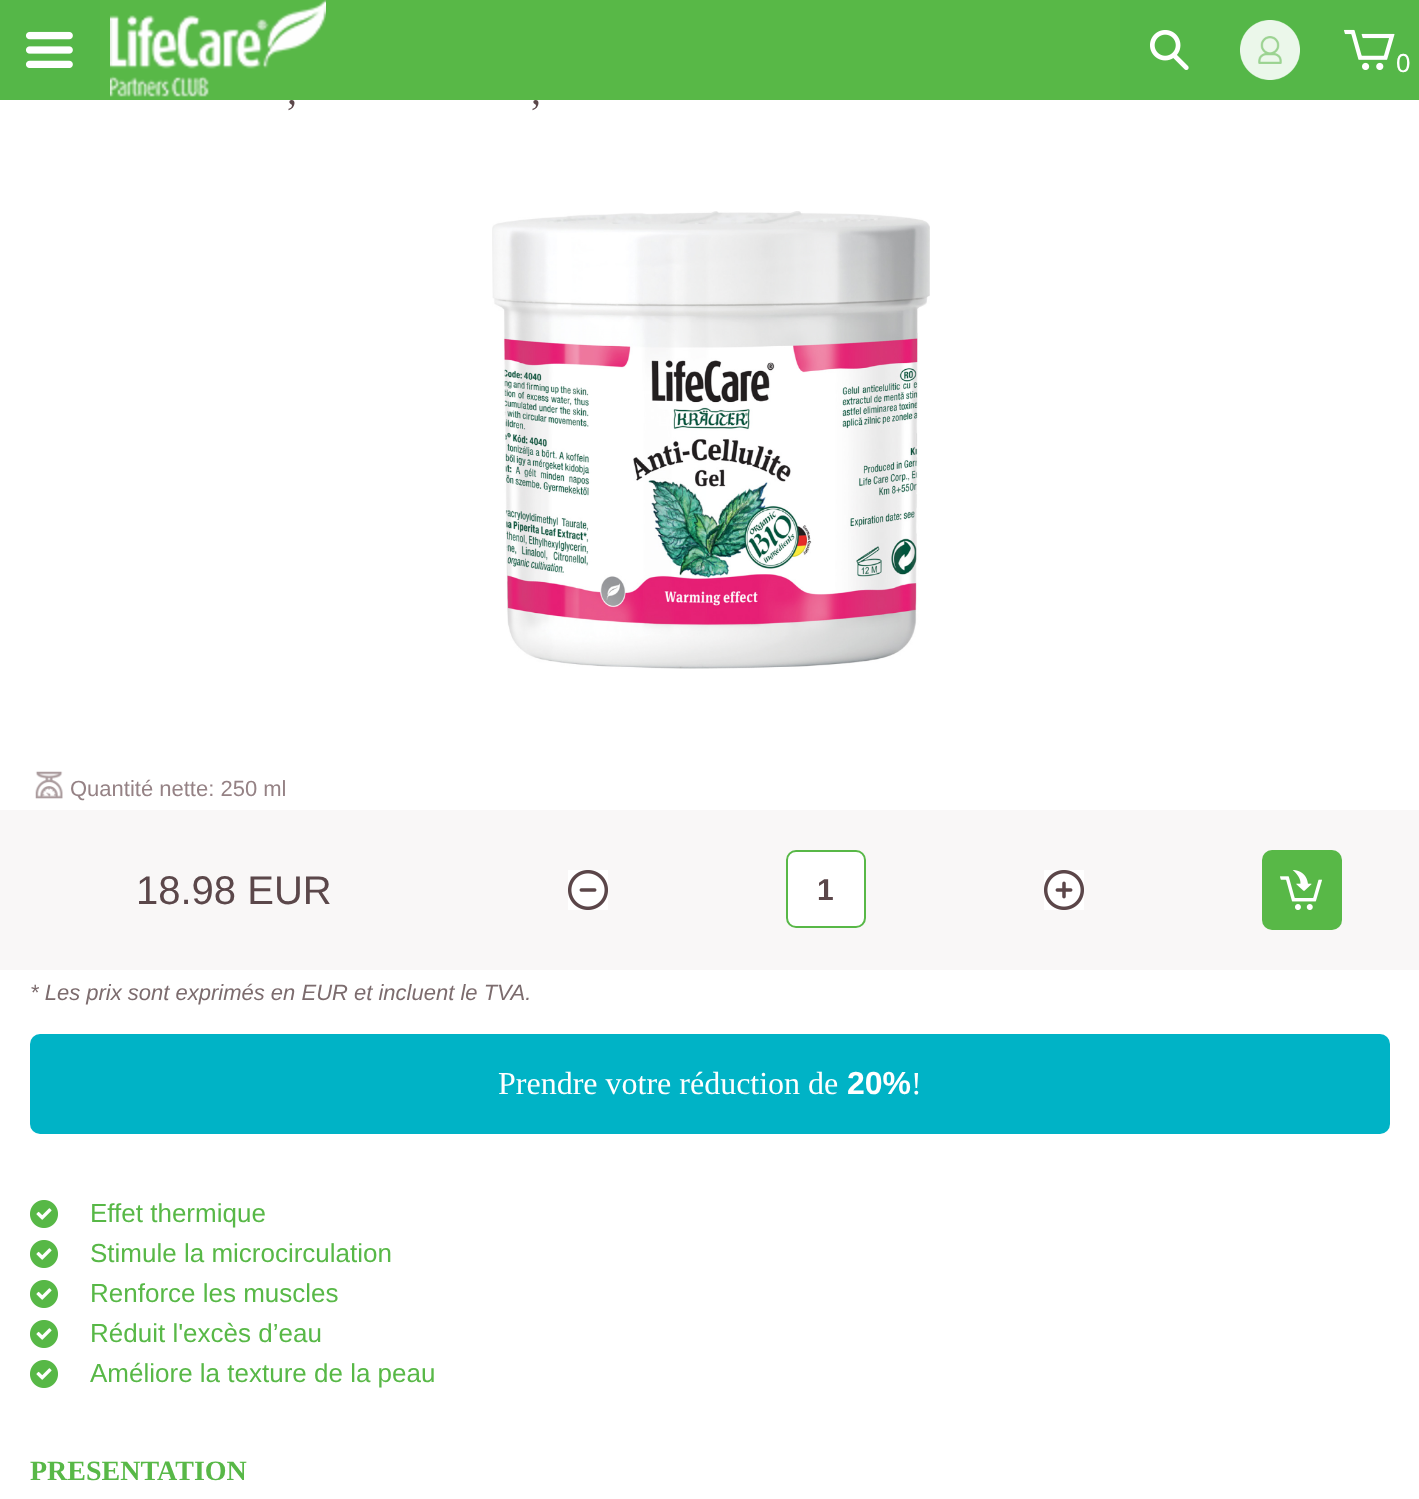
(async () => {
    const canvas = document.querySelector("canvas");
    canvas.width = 1419;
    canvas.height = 1499;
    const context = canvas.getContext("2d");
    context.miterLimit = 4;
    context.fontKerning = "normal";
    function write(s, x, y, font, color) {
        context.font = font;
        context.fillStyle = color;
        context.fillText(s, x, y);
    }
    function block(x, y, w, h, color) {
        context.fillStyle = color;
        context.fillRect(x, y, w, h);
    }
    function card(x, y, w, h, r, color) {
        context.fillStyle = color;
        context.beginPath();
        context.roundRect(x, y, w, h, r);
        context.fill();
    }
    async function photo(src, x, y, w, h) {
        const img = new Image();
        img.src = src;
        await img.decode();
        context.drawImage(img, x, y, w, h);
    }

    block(0, 0, 1419, 1499, "rgb(255, 255, 255)");
    write(",", 287, 104, "40px Liberation Serif", "rgb(91, 71, 74)");
    write(",", 531, 104, "40px Liberation Serif", "rgb(91, 71, 74)");
    block(100, 0, 1020, 100, "rgb(88, 184, 71)");
    block(0, 0, 100, 100, "rgb(85, 183, 72)");
    await photo("media/1.png", 26, 31, 47, 37);
    await photo("media/2.png", 110, 0, 216, 97);
    block(1120, 0, 299, 100, "rgb(85, 183, 72)");
    await photo("media/3.png", 1150, 30, 39, 40);
    await photo("media/4.png", 1240, 20, 60, 60);
    await photo("media/5.png", 1344, 29, 51, 41);
    write("0", 1396, 72, "26px Liberation Sans", "rgb(255, 255, 255)");
    await photo("media/6.png", 492, 211, 438, 458);
    await photo("media/7.png", 35, 771, 28, 28);
    write("Quantité nette: 250 ml", 70, 796, "22px Liberation Sans", "rgb(149, 130, 133)");
    block(0, 810, 1419, 160, "rgb(249, 247, 247)");
    write("18.98 EUR", 136, 904, "40px Liberation Sans", "rgb(91, 71, 74)");
    await photo("media/8.png", 568, 870, 40, 40);
    context.fillStyle = "rgb(255, 255, 255)";
    context.beginPath();
    context.roundRect(787, 851, 78, 76, 9);
    context.fill();
    context.strokeStyle = "rgb(88, 184, 71)";
    context.lineWidth = 2;
    context.stroke();
    write("1", 817, 900, "bold 30px Liberation Sans", "rgb(91, 71, 74)");
    await photo("media/9.png", 1044, 870, 40, 40);
    card(1262, 850, 80, 80, 10, "rgb(88, 184, 71)");
    await photo("media/10.png", 1280, 870, 42, 40);
    write("* Les prix sont exprimés en EUR et incluent le TVA.", 30, 1000, "italic 22px Liberation Sans", "rgb(124, 108, 110)");
    card(30, 1034, 1360, 100, 10, "rgb(0, 179, 198)");
    write("Prendre votre réduction de", 498, 1094, "32px Liberation Serif", "rgb(255, 255, 255)");
    write("20%", 847, 1094, "bold 32px Liberation Sans", "rgb(255, 255, 255)");
    write("!", 911, 1094, "32px Liberation Serif", "rgb(255, 255, 255)");
    await photo("media/11.png", 30, 1200, 28, 28);
    write("Effet thermique", 90, 1222, "26px Liberation Sans", "rgb(88, 184, 71)");
    await photo("media/11.png", 30, 1240, 28, 28);
    write("Stimule la microcirculation", 90, 1262, "26px Liberation Sans", "rgb(88, 184, 71)");
    await photo("media/11.png", 30, 1280, 28, 28);
    write("Renforce les muscles", 90, 1302, "26px Liberation Sans", "rgb(88, 184, 71)");
    await photo("media/11.png", 30, 1320, 28, 28);
    write("Réduit l'excès d’eau", 90, 1342, "26px Liberation Sans", "rgb(88, 184, 71)");
    await photo("media/11.png", 30, 1360, 28, 28);
    write("Améliore la texture de la peau", 90, 1382, "26px Liberation Sans", "rgb(88, 184, 71)");
    write("PRESENTATION", 30, 1480, "bold 28px Liberation Serif", "rgb(88, 184, 71)");
})();
